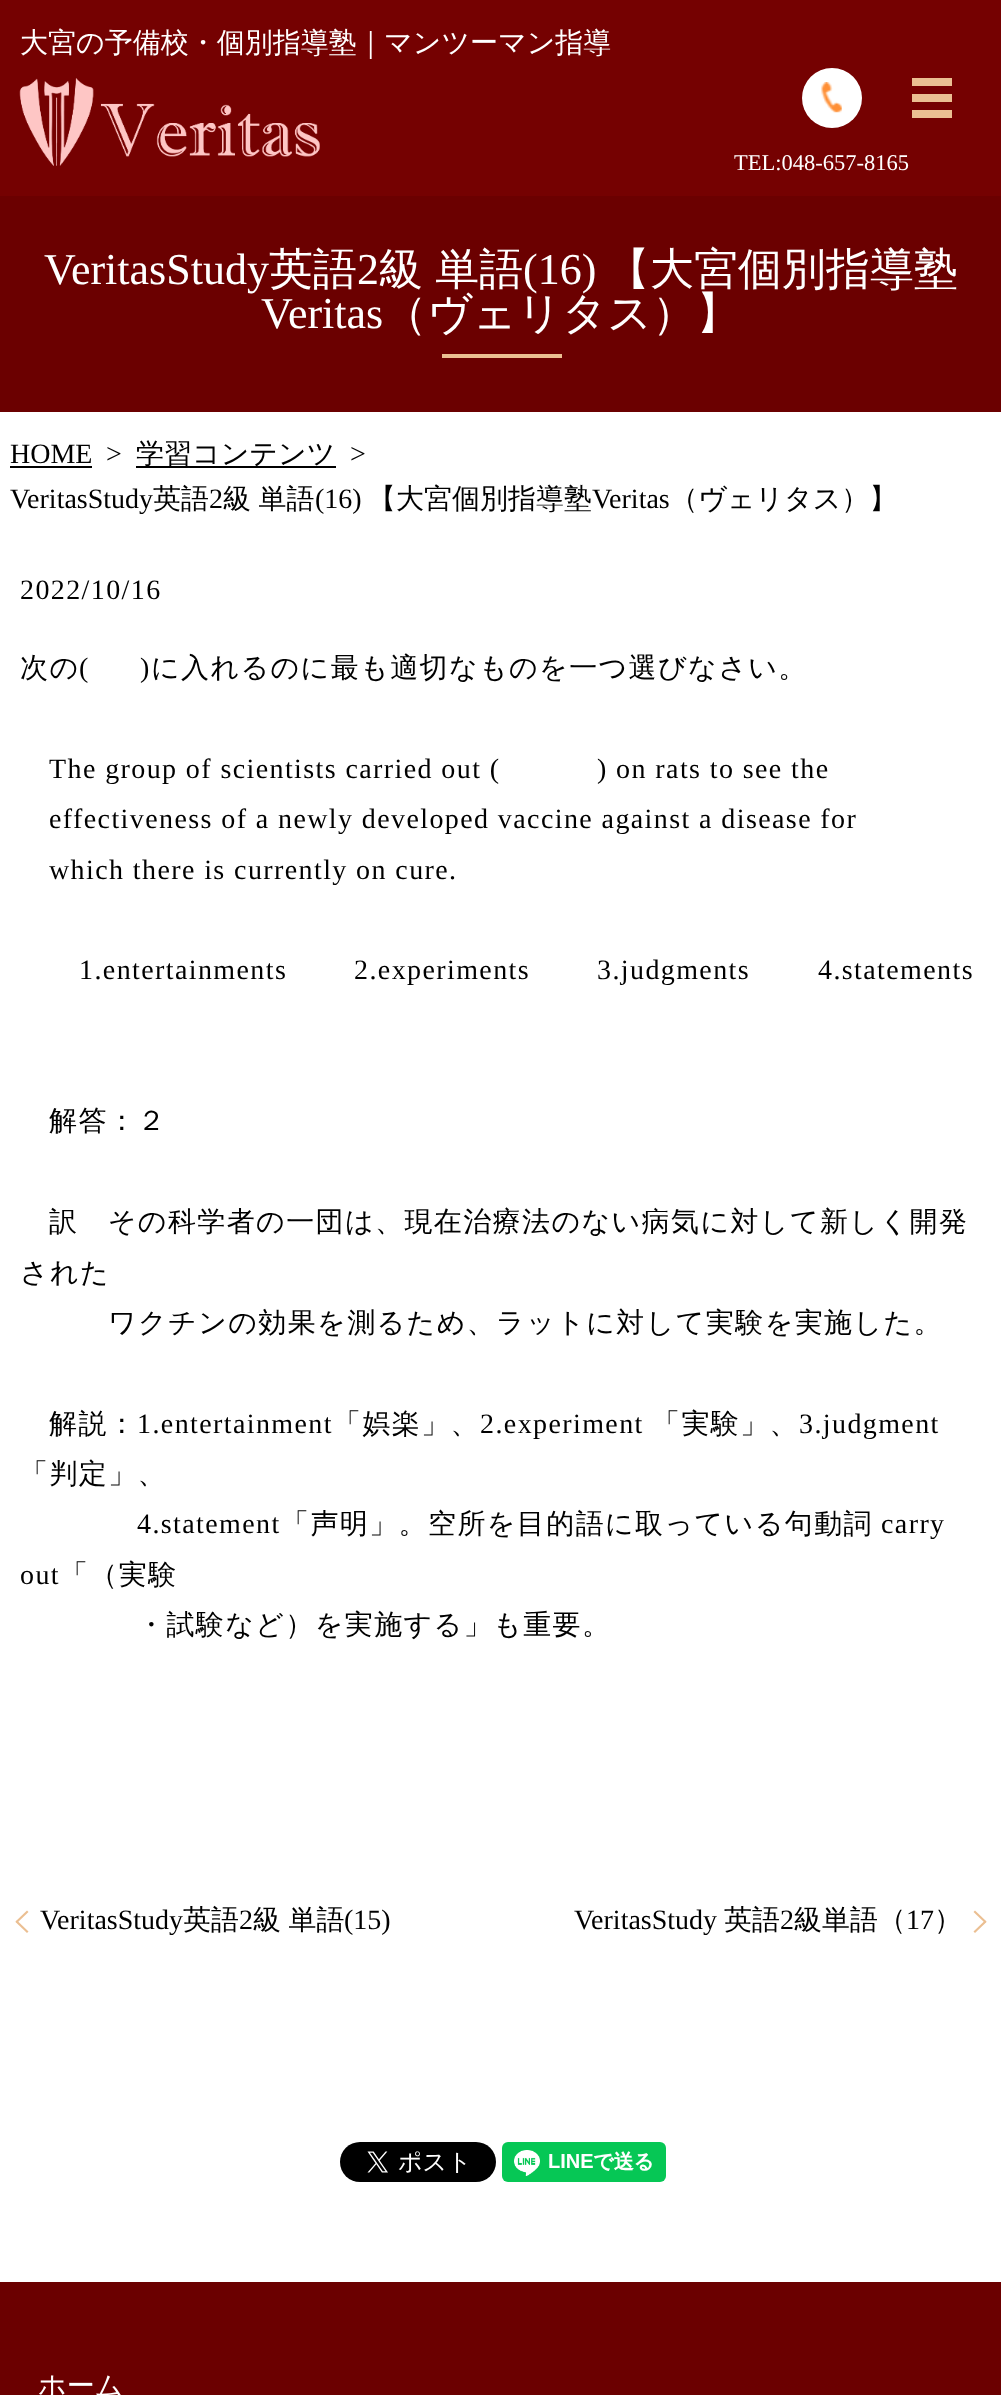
(async () => {
    const canvas = document.querySelector("canvas");
    canvas.width = 1001;
    canvas.height = 2395;
    const context = canvas.getContext("2d");
    context.miterLimit = 4;
    context.fontKerning = "normal";
    function write(s, x, y, font, color) {
        context.font = font;
        context.fillStyle = color;
        context.fillText(s, x, y);
    }
    function block(x, y, w, h, color) {
        context.fillStyle = color;
        context.fillRect(x, y, w, h);
    }
    async function photo(src, x, y, w, h) {
        const img = new Image();
        img.src = src;
        await img.decode();
        context.drawImage(img, x, y, w, h);
    }

    block(0, 0, 1001, 2395, "rgb(255, 255, 255)");
    block(0, 0, 1001, 196, "rgb(117, 1, 1)");
    write("大宮の予備校・個別指導塾｜マンツーマン指導", 20, 52, "500 28px WenQuanYi Zen Hei", "rgb(255, 255, 255)");
    await photo("media/1.png", 19, 78, 301, 88);
    block(912, 94, 40, 8, "rgb(235, 191, 146)");
    block(912, 78, 40, 8, "rgb(235, 191, 146)");
    block(912, 110, 40, 8, "rgb(235, 191, 146)");
    context.fillStyle = "rgb(255, 255, 255)";
    context.beginPath();
    context.arc(832, 98, 30, 0, Math.PI * 2);
    context.fill();
    await photo("media/2.png", 821, 82, 21, 31);
    write("TEL:048-657-8165", 734, 170, "22.5px Liberation Serif", "rgb(255, 255, 255)");
    block(0, 196, 1001, 216, "rgb(107, 0, 0)");
    write("VeritasStudy", 44, 284, "44px Liberation Serif", "rgb(255, 255, 255)");
    write("英語", 269, 284, "500 44px WenQuanYi Zen Hei", "rgb(255, 255, 255)");
    write("2", 357, 284, "44px Liberation Serif", "rgb(255, 255, 255)");
    context.wordSpacing = "-1px";
    write("級 単語", 379, 284, "500 44px WenQuanYi Zen Hei", "rgb(255, 255, 255)");
    context.wordSpacing = "0px";
    write("(16)", 523, 284, "44px Liberation Serif", "rgb(255, 255, 255)");
    write("【大宮個別指導塾", 606, 284, "500 44px WenQuanYi Zen Hei", "rgb(255, 255, 255)");
    write("Veritas", 261, 328, "44px Liberation Serif", "rgb(255, 255, 255)");
    write("（ヴェリタス）】", 383, 328, "500 44px WenQuanYi Zen Hei", "rgb(255, 255, 255)");
    block(442, 354, 120, 4, "rgb(235, 191, 146)");
    write("HOME", 10, 463, "28px Liberation Serif", "rgb(0, 0, 0)");
    block(10, 466, 82, 2, "rgb(0, 0, 0)");
    write(">", 106, 463, "28px Liberation Serif", "rgb(0, 0, 0)");
    block(136, 466, 200, 2, "rgb(0, 0, 0)");
    write("学習コンテンツ", 136, 463, "500 28px WenQuanYi Zen Hei", "rgb(0, 0, 0)");
    write(">", 350, 463, "28px Liberation Serif", "rgb(0, 0, 0)");
    write("VeritasStudy", 10, 508, "28px Liberation Serif", "rgb(0, 0, 0)");
    write("英語", 153, 508, "500 28px WenQuanYi Zen Hei", "rgb(0, 0, 0)");
    write("2", 209, 508, "28px Liberation Serif", "rgb(0, 0, 0)");
    context.wordSpacing = "-1px";
    write("級 単語", 223, 508, "500 28px WenQuanYi Zen Hei", "rgb(0, 0, 0)");
    context.wordSpacing = "0px";
    write("(16)", 315, 508, "28px Liberation Serif", "rgb(0, 0, 0)");
    write("【大宮個別指導塾", 368, 508, "500 28px WenQuanYi Zen Hei", "rgb(0, 0, 0)");
    write("Veritas", 592, 508, "28px Liberation Serif", "rgb(0, 0, 0)");
    write("（ヴェリタス）】", 670, 508, "500 28px WenQuanYi Zen Hei", "rgb(0, 0, 0)");
    context.letterSpacing = "1.4px";
    write("2022/10/16", 20, 599, "28px Liberation Serif", "rgb(0, 0, 0)");
    write("次の", 20, 677, "500 28px WenQuanYi Zen Hei", "rgb(0, 0, 0)");
    write("(      )", 79, 677, "28px Liberation Serif", "rgb(0, 0, 0)");
    write("に入れるのに最も適切なものを一つ選びなさい。", 151, 677, "500 28px WenQuanYi Zen Hei", "rgb(0, 0, 0)");
    write("The group of scientists carried out (", 49, 778, "28px Liberation Serif", "rgb(0, 0, 0)");
    write(") on rats to see the", 597, 778, "28px Liberation Serif", "rgb(0, 0, 0)");
    write("effectiveness of a newly developed vaccine against a disease for", 49, 828, "28px Liberation Serif", "rgb(0, 0, 0)");
    write("which there is currently on cure.", 49, 879, "28px Liberation Serif", "rgb(0, 0, 0)");
    write("1.entertainments", 79, 979, "28px Liberation Serif", "rgb(0, 0, 0)");
    write("2.experiments", 354, 979, "28px Liberation Serif", "rgb(0, 0, 0)");
    write("3.judgments", 597, 979, "28px Liberation Serif", "rgb(0, 0, 0)");
    write("4.statements", 818, 979, "28px Liberation Serif", "rgb(0, 0, 0)");
    write("解答：２", 49, 1130, "500 28px WenQuanYi Zen Hei", "rgb(0, 0, 0)");
    write("訳　その科学者の一団は、現在治療法のない病気に対して新しく開発", 49, 1231, "500 28px WenQuanYi Zen Hei", "rgb(0, 0, 0)");
    write("された", 20, 1282, "500 28px WenQuanYi Zen Hei", "rgb(0, 0, 0)");
    write("ワクチンの効果を測るため、ラットに対して実験を実施した。", 108, 1332, "500 28px WenQuanYi Zen Hei", "rgb(0, 0, 0)");
    write("解説：", 49, 1433, "500 28px WenQuanYi Zen Hei", "rgb(0, 0, 0)");
    write("1.entertainment", 137, 1433, "28px Liberation Serif", "rgb(0, 0, 0)");
    write("「娯楽」、", 333, 1433, "500 28px WenQuanYi Zen Hei", "rgb(0, 0, 0)");
    write("2.experiment", 480, 1433, "28px Liberation Serif", "rgb(0, 0, 0)");
    write("「実験」、", 652, 1433, "500 28px WenQuanYi Zen Hei", "rgb(0, 0, 0)");
    write("3.judgment", 799, 1433, "28px Liberation Serif", "rgb(0, 0, 0)");
    write("「判定」、", 20, 1483, "500 28px WenQuanYi Zen Hei", "rgb(0, 0, 0)");
    write("4.statement", 137, 1533, "28px Liberation Serif", "rgb(0, 0, 0)");
    write("「声明」。空所を目的語に取っている句動詞", 281, 1533, "500 28px WenQuanYi Zen Hei", "rgb(0, 0, 0)");
    write("carry", 881, 1533, "28px Liberation Serif", "rgb(0, 0, 0)");
    write("out", 20, 1584, "28px Liberation Serif", "rgb(0, 0, 0)");
    write("「（実験", 60, 1584, "500 28px WenQuanYi Zen Hei", "rgb(0, 0, 0)");
    write("・試験など）を実施する」も重要。", 137, 1634, "500 28px WenQuanYi Zen Hei", "rgb(0, 0, 0)");
    context.fillStyle = "rgb(235, 191, 146)";
    context.beginPath();
    context.moveTo(15.5, 1921.5);
    context.lineTo(27, 1910.5);
    context.lineTo(28.5, 1912);
    context.lineTo(17, 1923);
    context.closePath();
    context.fill();
    context.letterSpacing = "0px";
    write("VeritasStudy", 40, 1929, "28px Liberation Serif", "rgb(0, 0, 0)");
    write("英語", 183, 1929, "500 28px WenQuanYi Zen Hei", "rgb(0, 0, 0)");
    write("2", 239, 1929, "28px Liberation Serif", "rgb(0, 0, 0)");
    context.wordSpacing = "-1px";
    write("級 単語", 253, 1929, "500 28px WenQuanYi Zen Hei", "rgb(0, 0, 0)");
    context.wordSpacing = "0px";
    write("(15)", 344, 1929, "28px Liberation Serif", "rgb(0, 0, 0)");
    context.fillStyle = "rgb(235, 191, 146)";
    context.beginPath();
    context.moveTo(27, 1933);
    context.lineTo(15.5, 1922);
    context.lineTo(17, 1920.5);
    context.lineTo(28.5, 1931.5);
    context.closePath();
    context.fill();
    write("VeritasStudy", 574, 1929, "28px Liberation Serif", "rgb(0, 0, 0)");
    write("英語", 724, 1929, "500 28px WenQuanYi Zen Hei", "rgb(0, 0, 0)");
    write("2", 780, 1929, "28px Liberation Serif", "rgb(0, 0, 0)");
    write("級単語（", 794, 1929, "500 28px WenQuanYi Zen Hei", "rgb(0, 0, 0)");
    write("17", 906, 1929, "28px Liberation Serif", "rgb(0, 0, 0)");
    write("）", 934, 1929, "500 28px WenQuanYi Zen Hei", "rgb(0, 0, 0)");
    context.fillStyle = "rgb(235, 191, 146)";
    context.beginPath();
    context.moveTo(975, 1910.5);
    context.lineTo(986.5, 1921.5);
    context.lineTo(985, 1923);
    context.lineTo(973.5, 1912);
    context.closePath();
    context.fill();
    context.beginPath();
    context.moveTo(986.5, 1922);
    context.lineTo(975, 1933);
    context.lineTo(973.5, 1931.5);
    context.lineTo(985, 1920.5);
    context.closePath();
    context.fill();
    await photo("media/3.png", 340, 2142, 156, 40);
    await photo("media/4.png", 502, 2142, 164, 40);
    block(0, 2282, 1001, 113, "rgb(107, 0, 0)");
    write("ホーム", 38, 2395, "500 28px WenQuanYi Zen Hei", "rgb(255, 255, 255)");
})();
